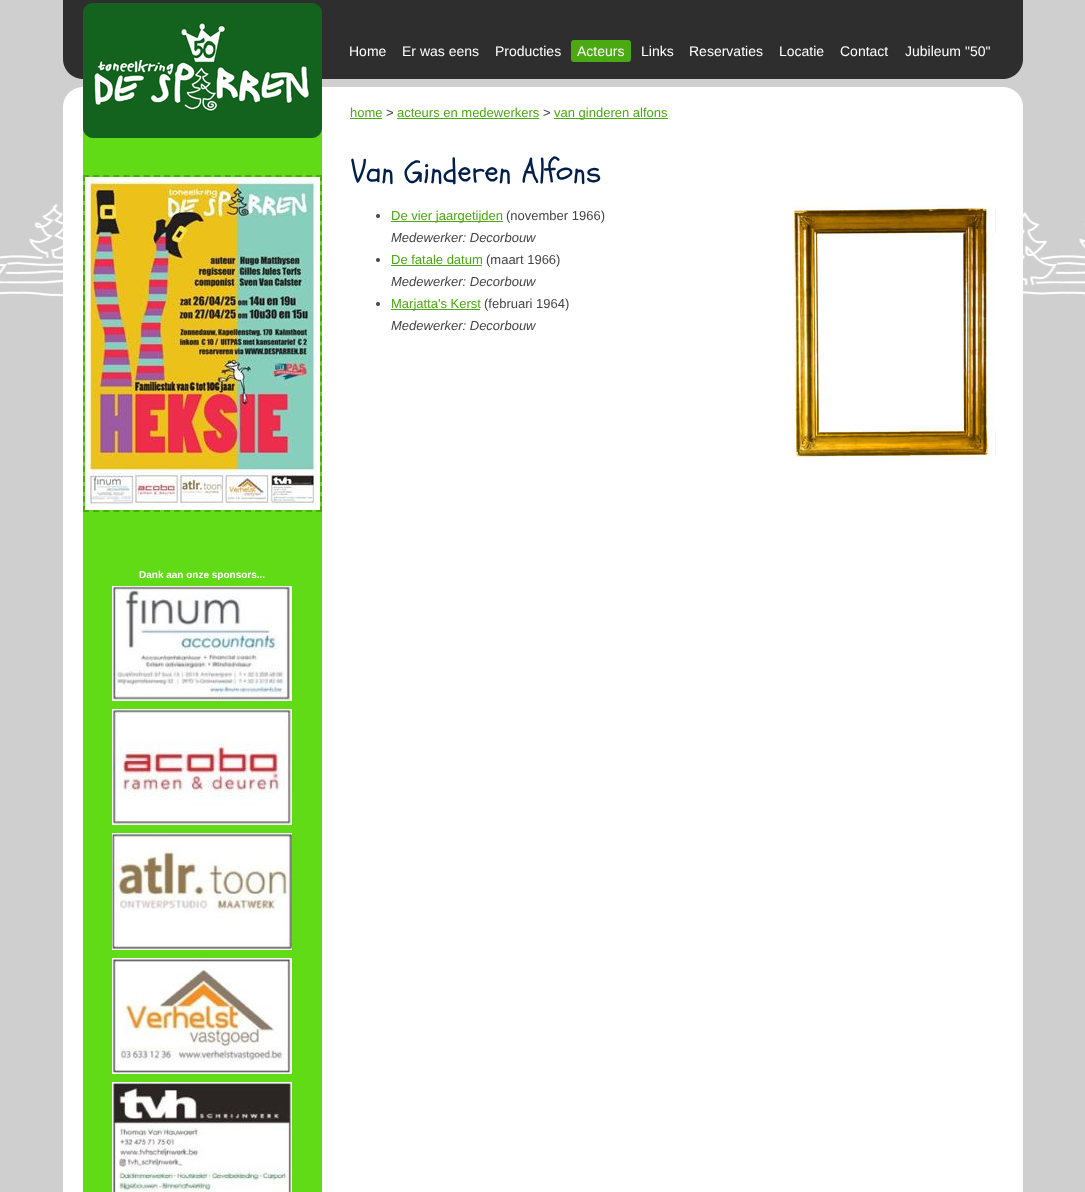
(async () => {
    const canvas = document.querySelector("canvas");
    canvas.width = 1085;
    canvas.height = 1192;
    const context = canvas.getContext("2d");
    context.miterLimit = 4;
    context.fontKerning = "normal";
    function write(s, x, y, font, color) {
        context.font = font;
        context.fillStyle = color;
        context.fillText(s, x, y);
    }
    function block(x, y, w, h, color) {
        context.fillStyle = color;
        context.fillRect(x, y, w, h);
    }
    function card(x, y, w, h, r, color) {
        context.fillStyle = color;
        context.beginPath();
        context.roundRect(x, y, w, h, r);
        context.fill();
    }
    async function photo(src, x, y, w, h) {
        const img = new Image();
        img.src = src;
        await img.decode();
        context.drawImage(img, x, y, w, h);
    }

    block(0, 0, 1085, 1192, "rgb(207, 207, 207)");
    await photo("media/1.png", 0, 200, 1085, 100);
    await photo("media/2.png", 63, 138, 960, 1054);
    await photo("media/3.png", 63, 0, 960, 138);
    await photo("media/4.png", 93, 22, 217, 90);
    write("Home", 349, 56, "14px Liberation Sans", "rgb(255, 255, 255)");
    write("Er was eens", 402, 56, "14px Liberation Sans", "rgb(255, 255, 255)");
    write("Producties", 495, 56, "14px Liberation Sans", "rgb(255, 255, 255)");
    card(571, 40, 60, 22, 3, "rgb(75, 169, 17)");
    write("Acteurs", 577, 56, "14px Liberation Sans", "rgb(255, 255, 255)");
    write("Links", 641, 56, "14px Liberation Sans", "rgb(255, 255, 255)");
    write("Reservaties", 689, 56, "14px Liberation Sans", "rgb(255, 255, 255)");
    write("Locatie", 779, 56, "14px Liberation Sans", "rgb(255, 255, 255)");
    write("Contact", 840, 56, "14px Liberation Sans", "rgb(255, 255, 255)");
    write("Jubileum \"50\"", 905, 56, "14px Liberation Sans", "rgb(255, 255, 255)");
    write("home", 350, 117, "13px Liberation Sans", "rgb(75, 169, 17)");
    block(350, 118, 32, 1, "rgb(75, 169, 17)");
    write(">", 386, 117, "13px Liberation Sans", "rgb(68, 68, 68)");
    write("acteurs en medewerkers", 397, 117, "13px Liberation Sans", "rgb(75, 169, 17)");
    block(397, 118, 142, 1, "rgb(75, 169, 17)");
    write(">", 543, 117, "13px Liberation Sans", "rgb(68, 68, 68)");
    block(554, 118, 114, 1, "rgb(75, 169, 17)");
    write("van ginderen alfons", 554, 117, "13px Liberation Sans", "rgb(75, 169, 17)");
    write("Van Ginderen Alfons", 351, 182, "32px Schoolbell", "rgb(0, 31, 75)");
    context.fillStyle = "rgb(68, 68, 68)";
    context.beginPath();
    context.arc(378, 216, 2, 0, Math.PI * 2);
    context.fill();
    block(391, 221, 112, 1, "rgb(75, 169, 17)");
    write("De vier jaargetijden", 391, 220, "13px Liberation Sans", "rgb(75, 169, 17)");
    write("(november 1966)", 506, 220, "13px Liberation Sans", "rgb(68, 68, 68)");
    write("Medewerker: Decorbouw", 391, 242, "italic 13px Liberation Sans", "rgb(68, 68, 68)");
    context.beginPath();
    context.arc(378, 260, 2, 0, Math.PI * 2);
    context.fill();
    write("De fatale datum", 391, 264, "13px Liberation Sans", "rgb(75, 169, 17)");
    block(391, 265, 91, 1, "rgb(75, 169, 17)");
    write("(maart 1966)", 486, 264, "13px Liberation Sans", "rgb(68, 68, 68)");
    write("Medewerker: Decorbouw", 391, 286, "italic 13px Liberation Sans", "rgb(68, 68, 68)");
    context.beginPath();
    context.arc(378, 304, 2, 0, Math.PI * 2);
    context.fill();
    block(391, 309, 89, 1, "rgb(75, 169, 17)");
    write("Marjatta's Kerst", 391, 308, "13px Liberation Sans", "rgb(75, 169, 17)");
    write("(februari 1964)", 484, 308, "13px Liberation Sans", "rgb(68, 68, 68)");
    write("Medewerker: Decorbouw", 391, 330, "italic 13px Liberation Sans", "rgb(68, 68, 68)");
    await photo("media/5.png", 794, 205, 202, 256);
    context.beginPath();
    context.moveTo(83, 176);
    context.lineTo(322, 176);
    context.strokeStyle = "rgb(75, 169, 17)";
    context.lineWidth = 2;
    context.setLineDash([6, 4.13]);
    context.stroke();
    context.beginPath();
    context.moveTo(321, 175);
    context.lineTo(321, 512);
    context.setLineDash([6, 4.03]);
    context.stroke();
    context.beginPath();
    context.moveTo(83, 511);
    context.lineTo(322, 511);
    context.setLineDash([6, 4.13]);
    context.stroke();
    context.beginPath();
    context.moveTo(84, 175);
    context.lineTo(84, 512);
    context.setLineDash([6, 4.03]);
    context.stroke();
    await photo("media/6.png", 85, 177, 235, 333);
    write("Dank aan onze sponsors...", 139, 578, "bold 10px Liberation Sans", "rgb(255, 255, 255)");
    await photo("media/7.png", 112, 586, 180, 115);
    await photo("media/8.png", 112, 709, 180, 116);
    await photo("media/9.png", 112, 833, 180, 117);
    await photo("media/10.png", 112, 958, 180, 116);
    await photo("media/11.png", 112, 1082, 180, 110);
})();
